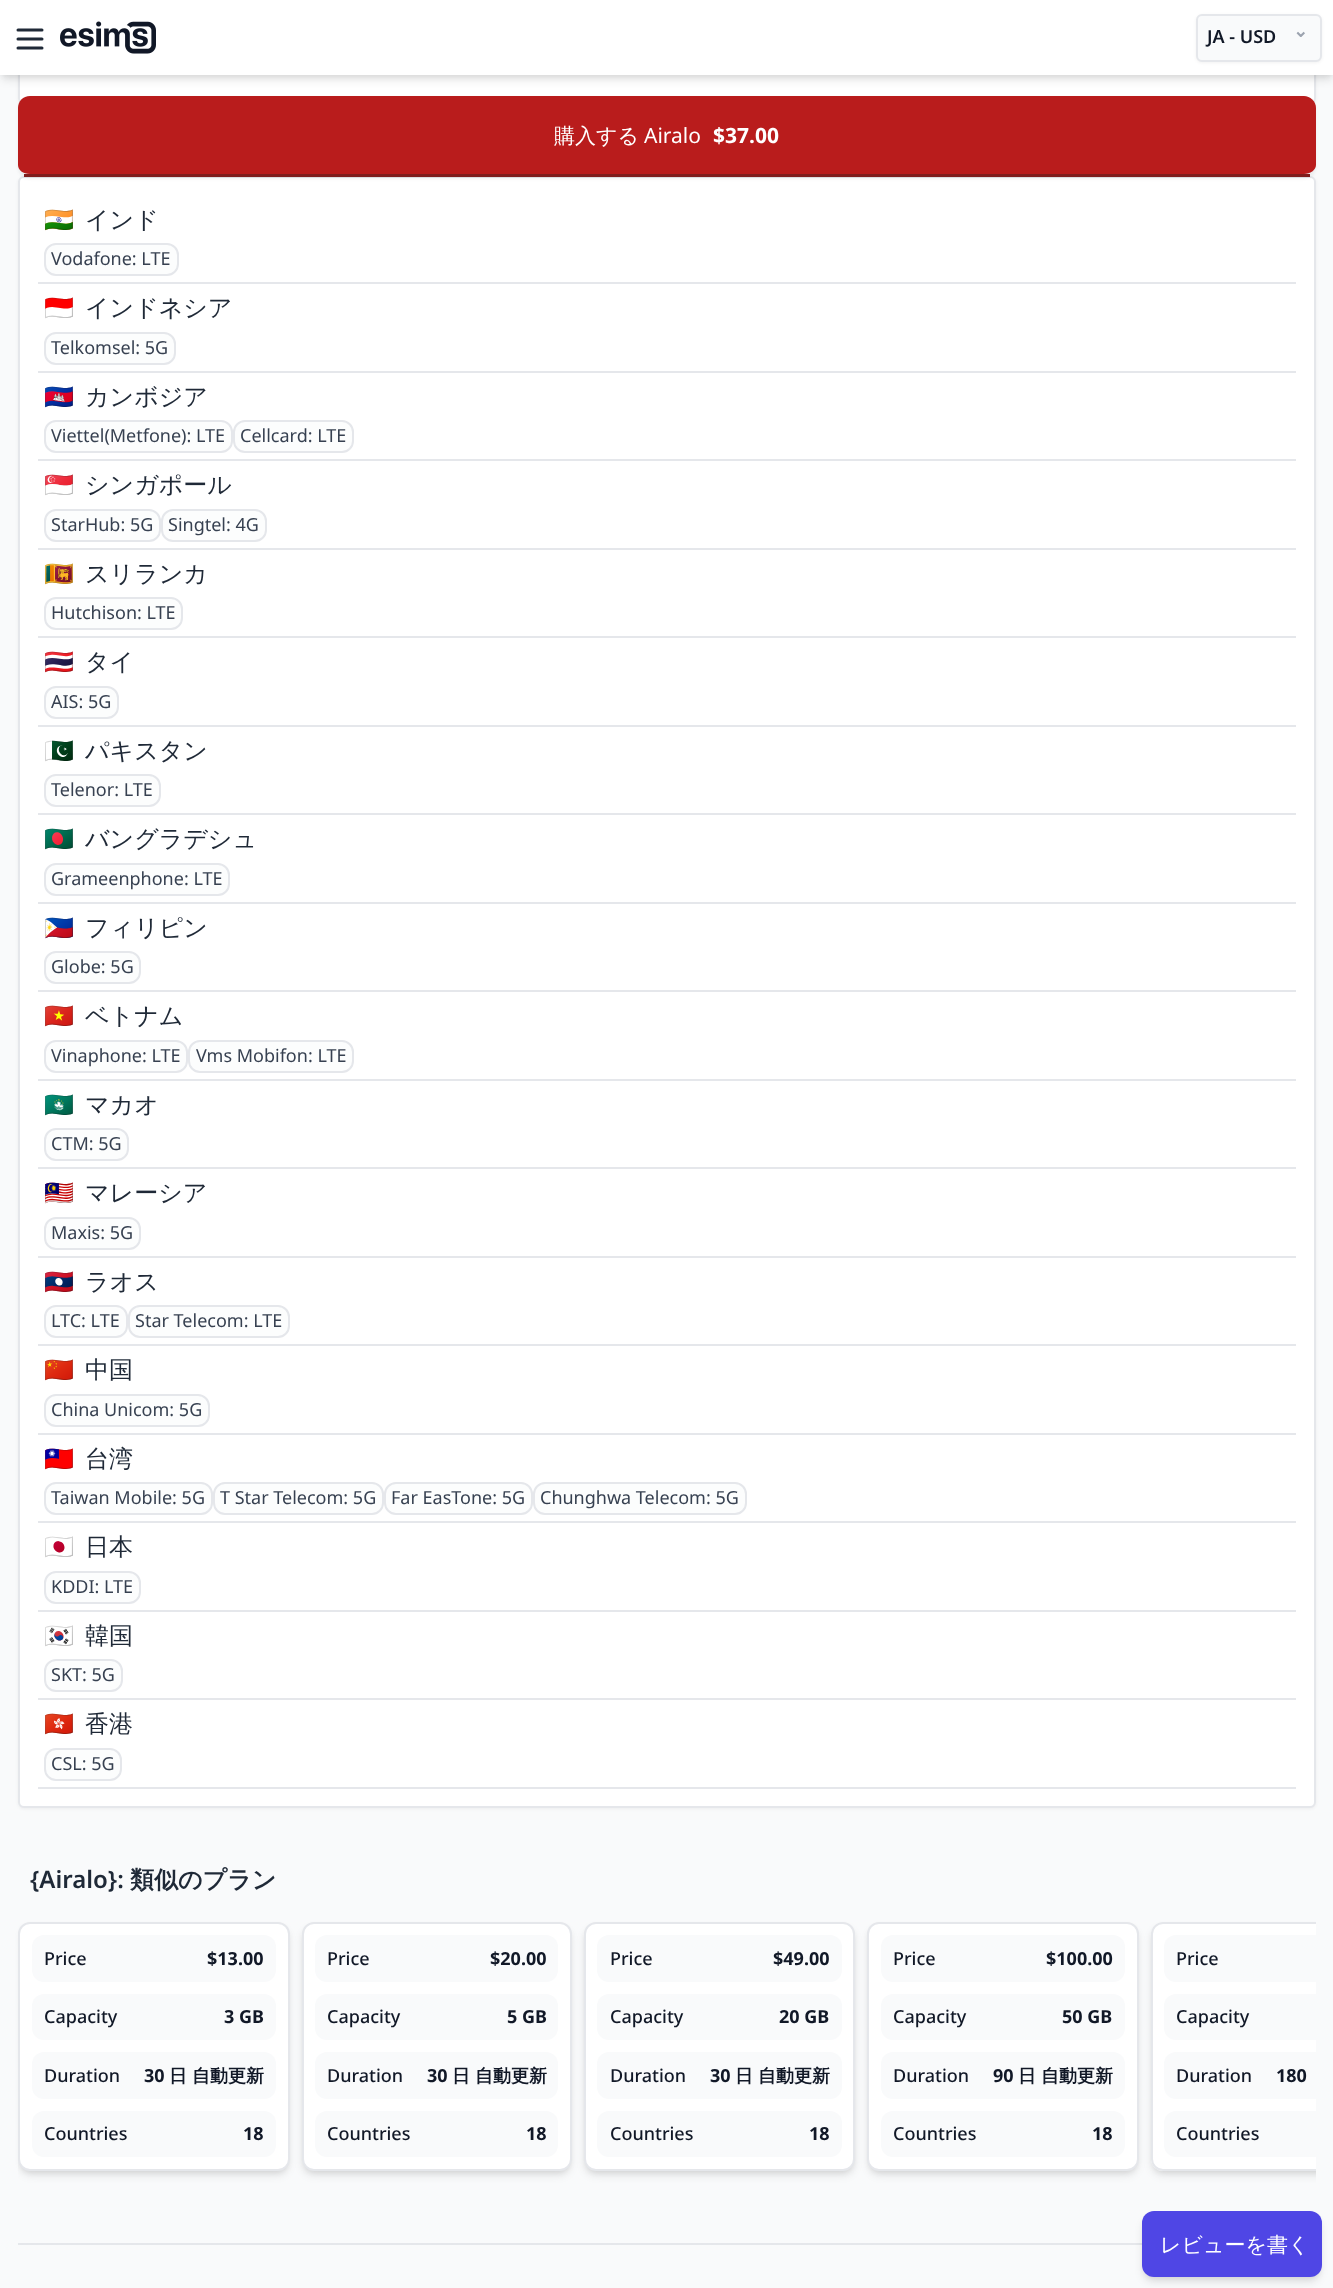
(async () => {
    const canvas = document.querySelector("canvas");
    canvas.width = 1333;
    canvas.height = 2288;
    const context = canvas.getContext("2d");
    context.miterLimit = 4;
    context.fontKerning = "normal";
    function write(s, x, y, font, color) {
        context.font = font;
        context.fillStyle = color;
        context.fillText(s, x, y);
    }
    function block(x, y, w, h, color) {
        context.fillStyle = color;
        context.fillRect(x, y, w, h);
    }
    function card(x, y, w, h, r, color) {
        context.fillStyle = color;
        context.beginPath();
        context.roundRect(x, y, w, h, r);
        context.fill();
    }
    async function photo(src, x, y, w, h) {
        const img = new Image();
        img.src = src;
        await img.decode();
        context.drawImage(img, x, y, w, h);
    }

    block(0, 0, 1333, 2288, "rgb(249, 250, 251)");
    context.fillStyle = "rgba(0, 0, 0, 0.05)";
    context.filter = "blur(1.5px)";
    context.beginPath();
    context.roundRect(18, -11, 1298, 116, 6);
    context.fill();
    context.filter = "none";
    context.fillStyle = "rgb(255, 255, 255)";
    context.beginPath();
    context.roundRect(19, -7, 1296, 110, 5);
    context.fill();
    context.strokeStyle = "rgb(229, 231, 235)";
    context.lineWidth = 2;
    context.stroke();
    context.fillStyle = "rgba(0, 0, 0, 0.1)";
    context.filter = "blur(3px)";
    context.beginPath();
    context.rect(3, 6, 1328, 69);
    context.fill();
    context.filter = "none";
    context.filter = "blur(4.5px)";
    context.beginPath();
    context.rect(2, 8, 1330, 72);
    context.fill();
    context.filter = "none";
    block(0, 0, 1333, 75, "rgb(255, 255, 255)");
    context.beginPath();
    context.moveTo(18, 30);
    context.lineTo(42, 30);
    context.moveTo(18, 39);
    context.lineTo(42, 39);
    context.moveTo(18, 48);
    context.lineTo(42, 48);
    context.strokeStyle = "rgb(31, 41, 55)";
    context.lineWidth = 3;
    context.lineCap = "round";
    context.lineJoin = "round";
    context.stroke();
    await photo("media/1.png", 60, 21, 96, 33);
    context.fillStyle = "rgba(0, 0, 0, 0.05)";
    context.filter = "blur(1.5px)";
    context.beginPath();
    context.roundRect(1196, 15, 126, 48, 6);
    context.fill();
    context.filter = "none";
    context.fillStyle = "rgb(249, 250, 251)";
    context.beginPath();
    context.roundRect(1197, 15, 124, 46, 5);
    context.fill();
    context.strokeStyle = "rgb(229, 231, 235)";
    context.lineWidth = 2;
    context.lineJoin = "miter";
    context.stroke();
    write("JA - USD", 1207, 43, "600 18px Noto Sans", "rgb(17, 24, 39)");
    context.letterSpacing = "4px";
    write("⌄", 1293, 37, "bold 18px DejaVu Sans", "rgb(156, 163, 175)");
    block(18, 2243, 1124, 2, "rgb(229, 231, 235)");
    context.fillStyle = "rgba(0, 0, 0, 0.1)";
    context.filter = "blur(3px)";
    context.beginPath();
    context.roundRect(1145, 2217, 174, 60, 9);
    context.fill();
    context.filter = "none";
    context.filter = "blur(4.5px)";
    context.beginPath();
    context.roundRect(1143, 2219, 177, 63, 11);
    context.fill();
    context.filter = "none";
    card(1142, 2211, 180, 66, 12, "rgb(79, 70, 229)");
    context.letterSpacing = "0px";
    write("レビューを書く", 1160, 2252, "500 21px WenQuanYi Zen Hei", "rgb(255, 255, 255)");
    context.fillStyle = "rgba(0, 0, 0, 0.05)";
    context.filter = "blur(1.5px)";
    context.beginPath();
    context.roundRect(18, 177, 1298, 1632, 6);
    context.fill();
    context.filter = "none";
    context.fillStyle = "rgb(255, 255, 255)";
    context.beginPath();
    context.roundRect(19, 177, 1296, 1630, 5);
    context.fill();
    context.stroke();
    context.fillStyle = "rgba(0, 0, 0, 0.05)";
    context.filter = "blur(1.5px)";
    context.beginPath();
    context.roundRect(18, 98, 1298, 81, 12);
    context.fill();
    context.filter = "none";
    context.fillStyle = "rgb(185, 28, 28)";
    context.beginPath();
    context.moveTo(30, 96);
    context.lineTo(1304, 96);
    context.bezierCurveTo(1310, 96, 1316, 101, 1316, 108);
    context.lineTo(1316, 165);
    context.bezierCurveTo(1316, 170, 1310, 174, 1304, 174);
    context.lineTo(30, 174);
    context.bezierCurveTo(23, 174, 18, 170, 18, 165);
    context.lineTo(18, 108);
    context.bezierCurveTo(18, 101, 23, 96, 30, 96);
    context.closePath();
    context.fill();
    block(24, 174, 1286, 3, "rgb(127, 29, 29)");
    write("購入する", 554, 143, "500 21px WenQuanYi Zen Hei", "rgb(255, 255, 255)");
    write("Airalo", 644, 143, "21px Noto Sans", "rgb(255, 255, 255)");
    write("$37.00", 713, 143, "bold 21px Noto Sans", "rgb(255, 255, 255)");
    block(38, 282, 1258, 2, "rgb(229, 231, 235)");
    write("🇮🇳", 44, 228, "24px Noto Color Emoji", "rgb(31, 41, 55)");
    write("インド", 85, 228, "500 24px WenQuanYi Zen Hei", "rgb(31, 41, 55)");
    context.fillStyle = "rgb(252, 253, 253)";
    context.beginPath();
    context.roundRect(45, 244, 133, 31, 11);
    context.fill();
    context.stroke();
    write("Vodafone: LTE", 51, 265, "18px Noto Sans", "rgb(55, 65, 81)");
    block(38, 371, 1258, 2, "rgb(229, 231, 235)");
    write("🇮🇩", 44, 316, "24px Noto Color Emoji", "rgb(31, 41, 55)");
    write("インドネシア", 85, 316, "500 24px WenQuanYi Zen Hei", "rgb(31, 41, 55)");
    context.fillStyle = "rgb(252, 253, 253)";
    context.beginPath();
    context.roundRect(45, 333, 130, 31, 11);
    context.fill();
    context.stroke();
    write("Telkomsel: 5G", 51, 354, "18px Noto Sans", "rgb(55, 65, 81)");
    block(38, 459, 1258, 2, "rgb(229, 231, 235)");
    write("🇰🇭", 44, 405, "24px Noto Color Emoji", "rgb(31, 41, 55)");
    write("カンボジア", 85, 405, "500 24px WenQuanYi Zen Hei", "rgb(31, 41, 55)");
    context.fillStyle = "rgb(252, 253, 253)";
    context.beginPath();
    context.roundRect(45, 421, 187, 31, 11);
    context.fill();
    context.stroke();
    write("Viettel(Metfone): LTE", 51, 442, "18px Noto Sans", "rgb(55, 65, 81)");
    context.fillStyle = "rgb(252, 253, 253)";
    context.beginPath();
    context.roundRect(234, 421, 119, 31, 11);
    context.fill();
    context.stroke();
    write("Cellcard: LTE", 240, 442, "18px Noto Sans", "rgb(55, 65, 81)");
    block(38, 548, 1258, 2, "rgb(229, 231, 235)");
    write("🇸🇬", 44, 493, "24px Noto Color Emoji", "rgb(31, 41, 55)");
    write("シンガポール", 85, 493, "500 24px WenQuanYi Zen Hei", "rgb(31, 41, 55)");
    context.fillStyle = "rgb(252, 253, 253)";
    context.beginPath();
    context.roundRect(45, 510, 115, 31, 11);
    context.fill();
    context.stroke();
    write("StarHub: 5G", 51, 531, "18px Noto Sans", "rgb(55, 65, 81)");
    context.fillStyle = "rgb(252, 253, 253)";
    context.beginPath();
    context.roundRect(162, 510, 104, 31, 11);
    context.fill();
    context.stroke();
    write("Singtel: 4G", 168, 531, "18px Noto Sans", "rgb(55, 65, 81)");
    block(38, 636, 1258, 2, "rgb(229, 231, 235)");
    write("🇱🇰", 44, 582, "24px Noto Color Emoji", "rgb(31, 41, 55)");
    write("スリランカ", 85, 582, "500 24px WenQuanYi Zen Hei", "rgb(31, 41, 55)");
    context.fillStyle = "rgb(252, 253, 253)";
    context.beginPath();
    context.roundRect(45, 598, 137, 31, 11);
    context.fill();
    context.stroke();
    write("Hutchison: LTE", 51, 619, "18px Noto Sans", "rgb(55, 65, 81)");
    block(38, 725, 1258, 2, "rgb(229, 231, 235)");
    write("🇹🇭", 44, 670, "24px Noto Color Emoji", "rgb(31, 41, 55)");
    write("タイ", 85, 670, "500 24px WenQuanYi Zen Hei", "rgb(31, 41, 55)");
    context.fillStyle = "rgb(252, 253, 253)";
    context.beginPath();
    context.roundRect(45, 687, 73, 31, 11);
    context.fill();
    context.stroke();
    write("AIS: 5G", 51, 708, "18px Noto Sans", "rgb(55, 65, 81)");
    block(38, 813, 1258, 2, "rgb(229, 231, 235)");
    write("🇵🇰", 44, 759, "24px Noto Color Emoji", "rgb(31, 41, 55)");
    write("パキスタン", 85, 759, "500 24px WenQuanYi Zen Hei", "rgb(31, 41, 55)");
    context.fillStyle = "rgb(252, 253, 253)";
    context.beginPath();
    context.roundRect(45, 775, 115, 31, 11);
    context.fill();
    context.stroke();
    write("Telenor: LTE", 51, 796, "18px Noto Sans", "rgb(55, 65, 81)");
    block(38, 902, 1258, 2, "rgb(229, 231, 235)");
    write("🇧🇩", 44, 847, "24px Noto Color Emoji", "rgb(31, 41, 55)");
    write("バングラデシュ", 85, 847, "500 24px WenQuanYi Zen Hei", "rgb(31, 41, 55)");
    context.fillStyle = "rgb(252, 253, 253)";
    context.beginPath();
    context.roundRect(45, 864, 184, 31, 11);
    context.fill();
    context.stroke();
    write("Grameenphone: LTE", 51, 885, "18px Noto Sans", "rgb(55, 65, 81)");
    block(38, 990, 1258, 2, "rgb(229, 231, 235)");
    write("🇵🇭", 44, 936, "24px Noto Color Emoji", "rgb(31, 41, 55)");
    write("フィリピン", 85, 936, "500 24px WenQuanYi Zen Hei", "rgb(31, 41, 55)");
    context.fillStyle = "rgb(252, 253, 253)";
    context.beginPath();
    context.roundRect(45, 952, 95, 31, 11);
    context.fill();
    context.stroke();
    write("Globe: 5G", 51, 973, "18px Noto Sans", "rgb(55, 65, 81)");
    block(38, 1079, 1258, 2, "rgb(229, 231, 235)");
    write("🇻🇳", 44, 1024, "24px Noto Color Emoji", "rgb(31, 41, 55)");
    write("ベトナム", 85, 1024, "500 24px WenQuanYi Zen Hei", "rgb(31, 41, 55)");
    context.fillStyle = "rgb(252, 253, 253)";
    context.beginPath();
    context.roundRect(45, 1041, 142, 31, 11);
    context.fill();
    context.stroke();
    write("Vinaphone: LTE", 51, 1062, "18px Noto Sans", "rgb(55, 65, 81)");
    context.fillStyle = "rgb(252, 253, 253)";
    context.beginPath();
    context.roundRect(189, 1041, 164, 31, 11);
    context.fill();
    context.stroke();
    write("Vms Mobifon: LTE", 196, 1062, "18px Noto Sans", "rgb(55, 65, 81)");
    block(38, 1167, 1258, 2, "rgb(229, 231, 235)");
    write("🇲🇴", 44, 1113, "24px Noto Color Emoji", "rgb(31, 41, 55)");
    write("マカオ", 85, 1113, "500 24px WenQuanYi Zen Hei", "rgb(31, 41, 55)");
    context.fillStyle = "rgb(252, 253, 253)";
    context.beginPath();
    context.roundRect(45, 1129, 83, 31, 11);
    context.fill();
    context.stroke();
    write("CTM: 5G", 51, 1150, "18px Noto Sans", "rgb(55, 65, 81)");
    block(38, 1256, 1258, 2, "rgb(229, 231, 235)");
    write("🇲🇾", 44, 1201, "24px Noto Color Emoji", "rgb(31, 41, 55)");
    write("マレーシア", 85, 1201, "500 24px WenQuanYi Zen Hei", "rgb(31, 41, 55)");
    context.fillStyle = "rgb(252, 253, 253)";
    context.beginPath();
    context.roundRect(45, 1218, 95, 31, 11);
    context.fill();
    context.stroke();
    write("Maxis: 5G", 51, 1239, "18px Noto Sans", "rgb(55, 65, 81)");
    block(38, 1344, 1258, 2, "rgb(229, 231, 235)");
    write("🇱🇦", 44, 1290, "24px Noto Color Emoji", "rgb(31, 41, 55)");
    write("ラオス", 85, 1290, "500 24px WenQuanYi Zen Hei", "rgb(31, 41, 55)");
    context.fillStyle = "rgb(252, 253, 253)";
    context.beginPath();
    context.roundRect(45, 1306, 82, 31, 11);
    context.fill();
    context.stroke();
    write("LTC: LTE", 51, 1327, "18px Noto Sans", "rgb(55, 65, 81)");
    context.fillStyle = "rgb(252, 253, 253)";
    context.beginPath();
    context.roundRect(129, 1306, 160, 31, 11);
    context.fill();
    context.stroke();
    write("Star Telecom: LTE", 135, 1327, "18px Noto Sans", "rgb(55, 65, 81)");
    block(38, 1433, 1258, 2, "rgb(229, 231, 235)");
    write("🇨🇳", 44, 1378, "24px Noto Color Emoji", "rgb(31, 41, 55)");
    write("中国", 85, 1378, "500 24px WenQuanYi Zen Hei", "rgb(31, 41, 55)");
    context.fillStyle = "rgb(252, 253, 253)";
    context.beginPath();
    context.roundRect(45, 1395, 164, 31, 11);
    context.fill();
    context.stroke();
    write("China Unicom: 5G", 51, 1416, "18px Noto Sans", "rgb(55, 65, 81)");
    block(38, 1521, 1258, 2, "rgb(229, 231, 235)");
    write("🇹🇼", 44, 1467, "24px Noto Color Emoji", "rgb(31, 41, 55)");
    write("台湾", 85, 1467, "500 24px WenQuanYi Zen Hei", "rgb(31, 41, 55)");
    context.fillStyle = "rgb(252, 253, 253)";
    context.beginPath();
    context.roundRect(45, 1483, 167, 31, 11);
    context.fill();
    context.stroke();
    write("Taiwan Mobile: 5G", 51, 1504, "18px Noto Sans", "rgb(55, 65, 81)");
    context.fillStyle = "rgb(252, 253, 253)";
    context.beginPath();
    context.roundRect(214, 1483, 169, 31, 11);
    context.fill();
    context.stroke();
    write("T Star Telecom: 5G", 220, 1504, "18px Noto Sans", "rgb(55, 65, 81)");
    context.fillStyle = "rgb(252, 253, 253)";
    context.beginPath();
    context.roundRect(385, 1483, 147, 31, 11);
    context.fill();
    context.stroke();
    write("Far EasTone: 5G", 391, 1504, "18px Noto Sans", "rgb(55, 65, 81)");
    context.fillStyle = "rgb(252, 253, 253)";
    context.beginPath();
    context.roundRect(534, 1483, 212, 31, 11);
    context.fill();
    context.stroke();
    write("Chunghwa Telecom: 5G", 540, 1504, "18px Noto Sans", "rgb(55, 65, 81)");
    block(38, 1610, 1258, 2, "rgb(229, 231, 235)");
    write("🇯🇵", 44, 1555, "24px Noto Color Emoji", "rgb(31, 41, 55)");
    write("日本", 85, 1555, "500 24px WenQuanYi Zen Hei", "rgb(31, 41, 55)");
    context.fillStyle = "rgb(252, 253, 253)";
    context.beginPath();
    context.roundRect(45, 1572, 95, 31, 11);
    context.fill();
    context.stroke();
    write("KDDI: LTE", 51, 1593, "18px Noto Sans", "rgb(55, 65, 81)");
    block(38, 1698, 1258, 2, "rgb(229, 231, 235)");
    write("🇰🇷", 44, 1644, "24px Noto Color Emoji", "rgb(31, 41, 55)");
    write("韓国", 85, 1644, "500 24px WenQuanYi Zen Hei", "rgb(31, 41, 55)");
    context.fillStyle = "rgb(252, 253, 253)";
    context.beginPath();
    context.roundRect(45, 1660, 77, 31, 11);
    context.fill();
    context.stroke();
    write("SKT: 5G", 51, 1681, "18px Noto Sans", "rgb(55, 65, 81)");
    block(38, 1787, 1258, 2, "rgb(229, 231, 235)");
    write("🇭🇰", 44, 1732, "24px Noto Color Emoji", "rgb(31, 41, 55)");
    write("香港", 85, 1732, "500 24px WenQuanYi Zen Hei", "rgb(31, 41, 55)");
    context.fillStyle = "rgb(252, 253, 253)";
    context.beginPath();
    context.roundRect(45, 1749, 76, 31, 11);
    context.fill();
    context.stroke();
    write("CSL: 5G", 51, 1770, "18px Noto Sans", "rgb(55, 65, 81)");
    write("{Airalo}:", 30, 1888, "600 24px Noto Sans", "rgb(31, 41, 55)");
    write("類似のプラン", 130, 1888, "bold 24px WenQuanYi Zen Hei", "rgb(31, 41, 55)");
    context.fillStyle = "rgba(0, 0, 0, 0.1)";
    context.filter = "blur(3px)";
    context.beginPath();
    context.roundRect(21, 1928, 266, 243, 9);
    context.fill();
    context.filter = "none";
    context.save();
    context.beginPath();
    context.rect(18, 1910, 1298, 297);
    context.clip();
    context.filter = "blur(4.5px)";
    context.beginPath();
    context.roundRect(20, 1929, 268, 246, 11);
    context.fill();
    context.filter = "none";
    context.restore();
    context.fillStyle = "rgb(255, 255, 255)";
    context.beginPath();
    context.roundRect(19, 1923, 270, 247, 11);
    context.fill();
    context.stroke();
    card(32, 1935, 244, 47, 12, "rgb(249, 250, 251)");
    write("Price", 44, 1965, "500 18px Noto Sans", "rgb(17, 24, 39)");
    write("$13.00", 207, 1965, "bold 18px Noto Sans", "rgb(17, 24, 39)");
    card(32, 1994, 244, 46, 12, "rgb(249, 250, 251)");
    write("Capacity", 44, 2023, "500 18px Noto Sans", "rgb(17, 24, 39)");
    write("3 GB", 224, 2023, "bold 18px Noto Sans", "rgb(17, 24, 39)");
    card(32, 2052, 244, 47, 12, "rgb(249, 250, 251)");
    write("Duration", 44, 2082, "500 18px Noto Sans", "rgb(17, 24, 39)");
    write("30", 144, 2082, "bold 18px Noto Sans", "rgb(17, 24, 39)");
    write("日", 169, 2082, "bold 18px WenQuanYi Zen Hei", "rgb(17, 24, 39)");
    write("自動更新", 192, 2082, "bold 18px WenQuanYi Zen Hei", "rgb(17, 24, 39)");
    card(32, 2111, 244, 46, 12, "rgb(249, 250, 251)");
    write("Countries", 44, 2140, "500 18px Noto Sans", "rgb(17, 24, 39)");
    write("18", 243, 2140, "bold 18px Noto Sans", "rgb(17, 24, 39)");
    context.fillStyle = "rgba(0, 0, 0, 0.1)";
    context.filter = "blur(3px)";
    context.beginPath();
    context.roundRect(305, 1928, 264, 243, 9);
    context.fill();
    context.filter = "none";
    context.filter = "blur(4.5px)";
    context.beginPath();
    context.roundRect(303, 1929, 267, 246, 11);
    context.fill();
    context.filter = "none";
    context.fillStyle = "rgb(255, 255, 255)";
    context.beginPath();
    context.roundRect(303, 1923, 268, 247, 11);
    context.fill();
    context.stroke();
    card(315, 1935, 243, 47, 12, "rgb(249, 250, 251)");
    write("Price", 327, 1965, "500 18px Noto Sans", "rgb(17, 24, 39)");
    write("$20.00", 490, 1965, "bold 18px Noto Sans", "rgb(17, 24, 39)");
    card(315, 1994, 243, 46, 12, "rgb(249, 250, 251)");
    write("Capacity", 327, 2023, "500 18px Noto Sans", "rgb(17, 24, 39)");
    write("5 GB", 507, 2023, "bold 18px Noto Sans", "rgb(17, 24, 39)");
    card(315, 2052, 243, 47, 12, "rgb(249, 250, 251)");
    write("Duration", 327, 2082, "500 18px Noto Sans", "rgb(17, 24, 39)");
    write("30", 427, 2082, "bold 18px Noto Sans", "rgb(17, 24, 39)");
    write("日", 452, 2082, "bold 18px WenQuanYi Zen Hei", "rgb(17, 24, 39)");
    write("自動更新", 475, 2082, "bold 18px WenQuanYi Zen Hei", "rgb(17, 24, 39)");
    card(315, 2111, 243, 46, 12, "rgb(249, 250, 251)");
    write("Countries", 327, 2140, "500 18px Noto Sans", "rgb(17, 24, 39)");
    write("18", 526, 2140, "bold 18px Noto Sans", "rgb(17, 24, 39)");
    context.fillStyle = "rgba(0, 0, 0, 0.1)";
    context.filter = "blur(3px)";
    context.beginPath();
    context.roundRect(587, 1928, 265, 243, 9);
    context.fill();
    context.filter = "none";
    context.filter = "blur(4.5px)";
    context.beginPath();
    context.roundRect(585, 1929, 269, 246, 11);
    context.fill();
    context.filter = "none";
    context.fillStyle = "rgb(255, 255, 255)";
    context.beginPath();
    context.roundRect(585, 1923, 269, 247, 11);
    context.fill();
    context.stroke();
    card(597, 1935, 245, 47, 12, "rgb(249, 250, 251)");
    write("Price", 610, 1965, "500 18px Noto Sans", "rgb(17, 24, 39)");
    write("$49.00", 773, 1965, "bold 18px Noto Sans", "rgb(17, 24, 39)");
    card(597, 1994, 245, 46, 12, "rgb(249, 250, 251)");
    write("Capacity", 610, 2023, "500 18px Noto Sans", "rgb(17, 24, 39)");
    write("20 GB", 779, 2023, "bold 18px Noto Sans", "rgb(17, 24, 39)");
    card(597, 2052, 245, 47, 12, "rgb(249, 250, 251)");
    write("Duration", 610, 2082, "500 18px Noto Sans", "rgb(17, 24, 39)");
    write("30", 710, 2082, "bold 18px Noto Sans", "rgb(17, 24, 39)");
    write("日", 735, 2082, "bold 18px WenQuanYi Zen Hei", "rgb(17, 24, 39)");
    write("自動更新", 758, 2082, "bold 18px WenQuanYi Zen Hei", "rgb(17, 24, 39)");
    card(597, 2111, 245, 46, 12, "rgb(249, 250, 251)");
    write("Countries", 610, 2140, "500 18px Noto Sans", "rgb(17, 24, 39)");
    write("18", 809, 2140, "bold 18px Noto Sans", "rgb(17, 24, 39)");
    context.fillStyle = "rgba(0, 0, 0, 0.1)";
    context.filter = "blur(3px)";
    context.beginPath();
    context.roundRect(870, 1928, 266, 243, 9);
    context.fill();
    context.filter = "none";
    context.filter = "blur(4.5px)";
    context.beginPath();
    context.roundRect(869, 1929, 268, 246, 11);
    context.fill();
    context.filter = "none";
    context.fillStyle = "rgb(255, 255, 255)";
    context.beginPath();
    context.roundRect(868, 1923, 270, 247, 11);
    context.fill();
    context.stroke();
    card(881, 1935, 244, 47, 12, "rgb(249, 250, 251)");
    write("Price", 893, 1965, "500 18px Noto Sans", "rgb(17, 24, 39)");
    write("$100.00", 1046, 1965, "bold 18px Noto Sans", "rgb(17, 24, 39)");
    card(881, 1994, 244, 46, 12, "rgb(249, 250, 251)");
    write("Capacity", 893, 2023, "500 18px Noto Sans", "rgb(17, 24, 39)");
    write("50 GB", 1062, 2023, "bold 18px Noto Sans", "rgb(17, 24, 39)");
    card(881, 2052, 244, 47, 12, "rgb(249, 250, 251)");
    write("Duration", 893, 2082, "500 18px Noto Sans", "rgb(17, 24, 39)");
    write("90", 993, 2082, "bold 18px Noto Sans", "rgb(17, 24, 39)");
    write("日", 1018, 2082, "bold 18px WenQuanYi Zen Hei", "rgb(17, 24, 39)");
    write("自動更新", 1041, 2082, "bold 18px WenQuanYi Zen Hei", "rgb(17, 24, 39)");
    card(881, 2111, 244, 46, 12, "rgb(249, 250, 251)");
    write("Countries", 893, 2140, "500 18px Noto Sans", "rgb(17, 24, 39)");
    write("18", 1092, 2140, "bold 18px Noto Sans", "rgb(17, 24, 39)");
    context.save();
    context.beginPath();
    context.rect(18, 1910, 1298, 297);
    context.clip();
    context.fillStyle = "rgba(0, 0, 0, 0.1)";
    context.filter = "blur(3px)";
    context.beginPath();
    context.roundRect(1154, 1928, 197, 243, 9);
    context.fill();
    context.filter = "none";
    context.filter = "blur(4.5px)";
    context.beginPath();
    context.roundRect(1152, 1929, 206, 246, 11);
    context.fill();
    context.filter = "none";
    context.restore();
    context.fillStyle = "rgb(255, 255, 255)";
    context.beginPath();
    context.roundRect(1151, 1922, 165, 249, [12, 0, 0, 12]);
    context.fill();
    context.save();
    context.beginPath();
    context.rect(18, 1910, 1298, 297);
    context.clip();
    context.beginPath();
    context.roundRect(1152, 1923, 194, 247, 11);
    context.stroke();
    context.restore();
    context.fillStyle = "rgb(249, 250, 251)";
    context.beginPath();
    context.roundRect(1164, 1935, 152, 47, [12, 0, 0, 12]);
    context.fill();
    write("Price", 1176, 1965, "500 18px Noto Sans", "rgb(17, 24, 39)");
    context.fillStyle = "rgb(249, 250, 251)";
    context.beginPath();
    context.roundRect(1164, 1994, 152, 46, [12, 0, 0, 12]);
    context.fill();
    write("Capacity", 1176, 2023, "500 18px Noto Sans", "rgb(17, 24, 39)");
    context.fillStyle = "rgb(249, 250, 251)";
    context.beginPath();
    context.roundRect(1164, 2052, 152, 47, [12, 0, 0, 12]);
    context.fill();
    write("Duration", 1176, 2082, "500 18px Noto Sans", "rgb(17, 24, 39)");
    write("180", 1276, 2082, "bold 18px Noto Sans", "rgb(17, 24, 39)");
    context.fillStyle = "rgb(249, 250, 251)";
    context.beginPath();
    context.roundRect(1164, 2111, 152, 46, [12, 0, 0, 12]);
    context.fill();
    write("Countries", 1176, 2140, "500 18px Noto Sans", "rgb(17, 24, 39)");
})();
